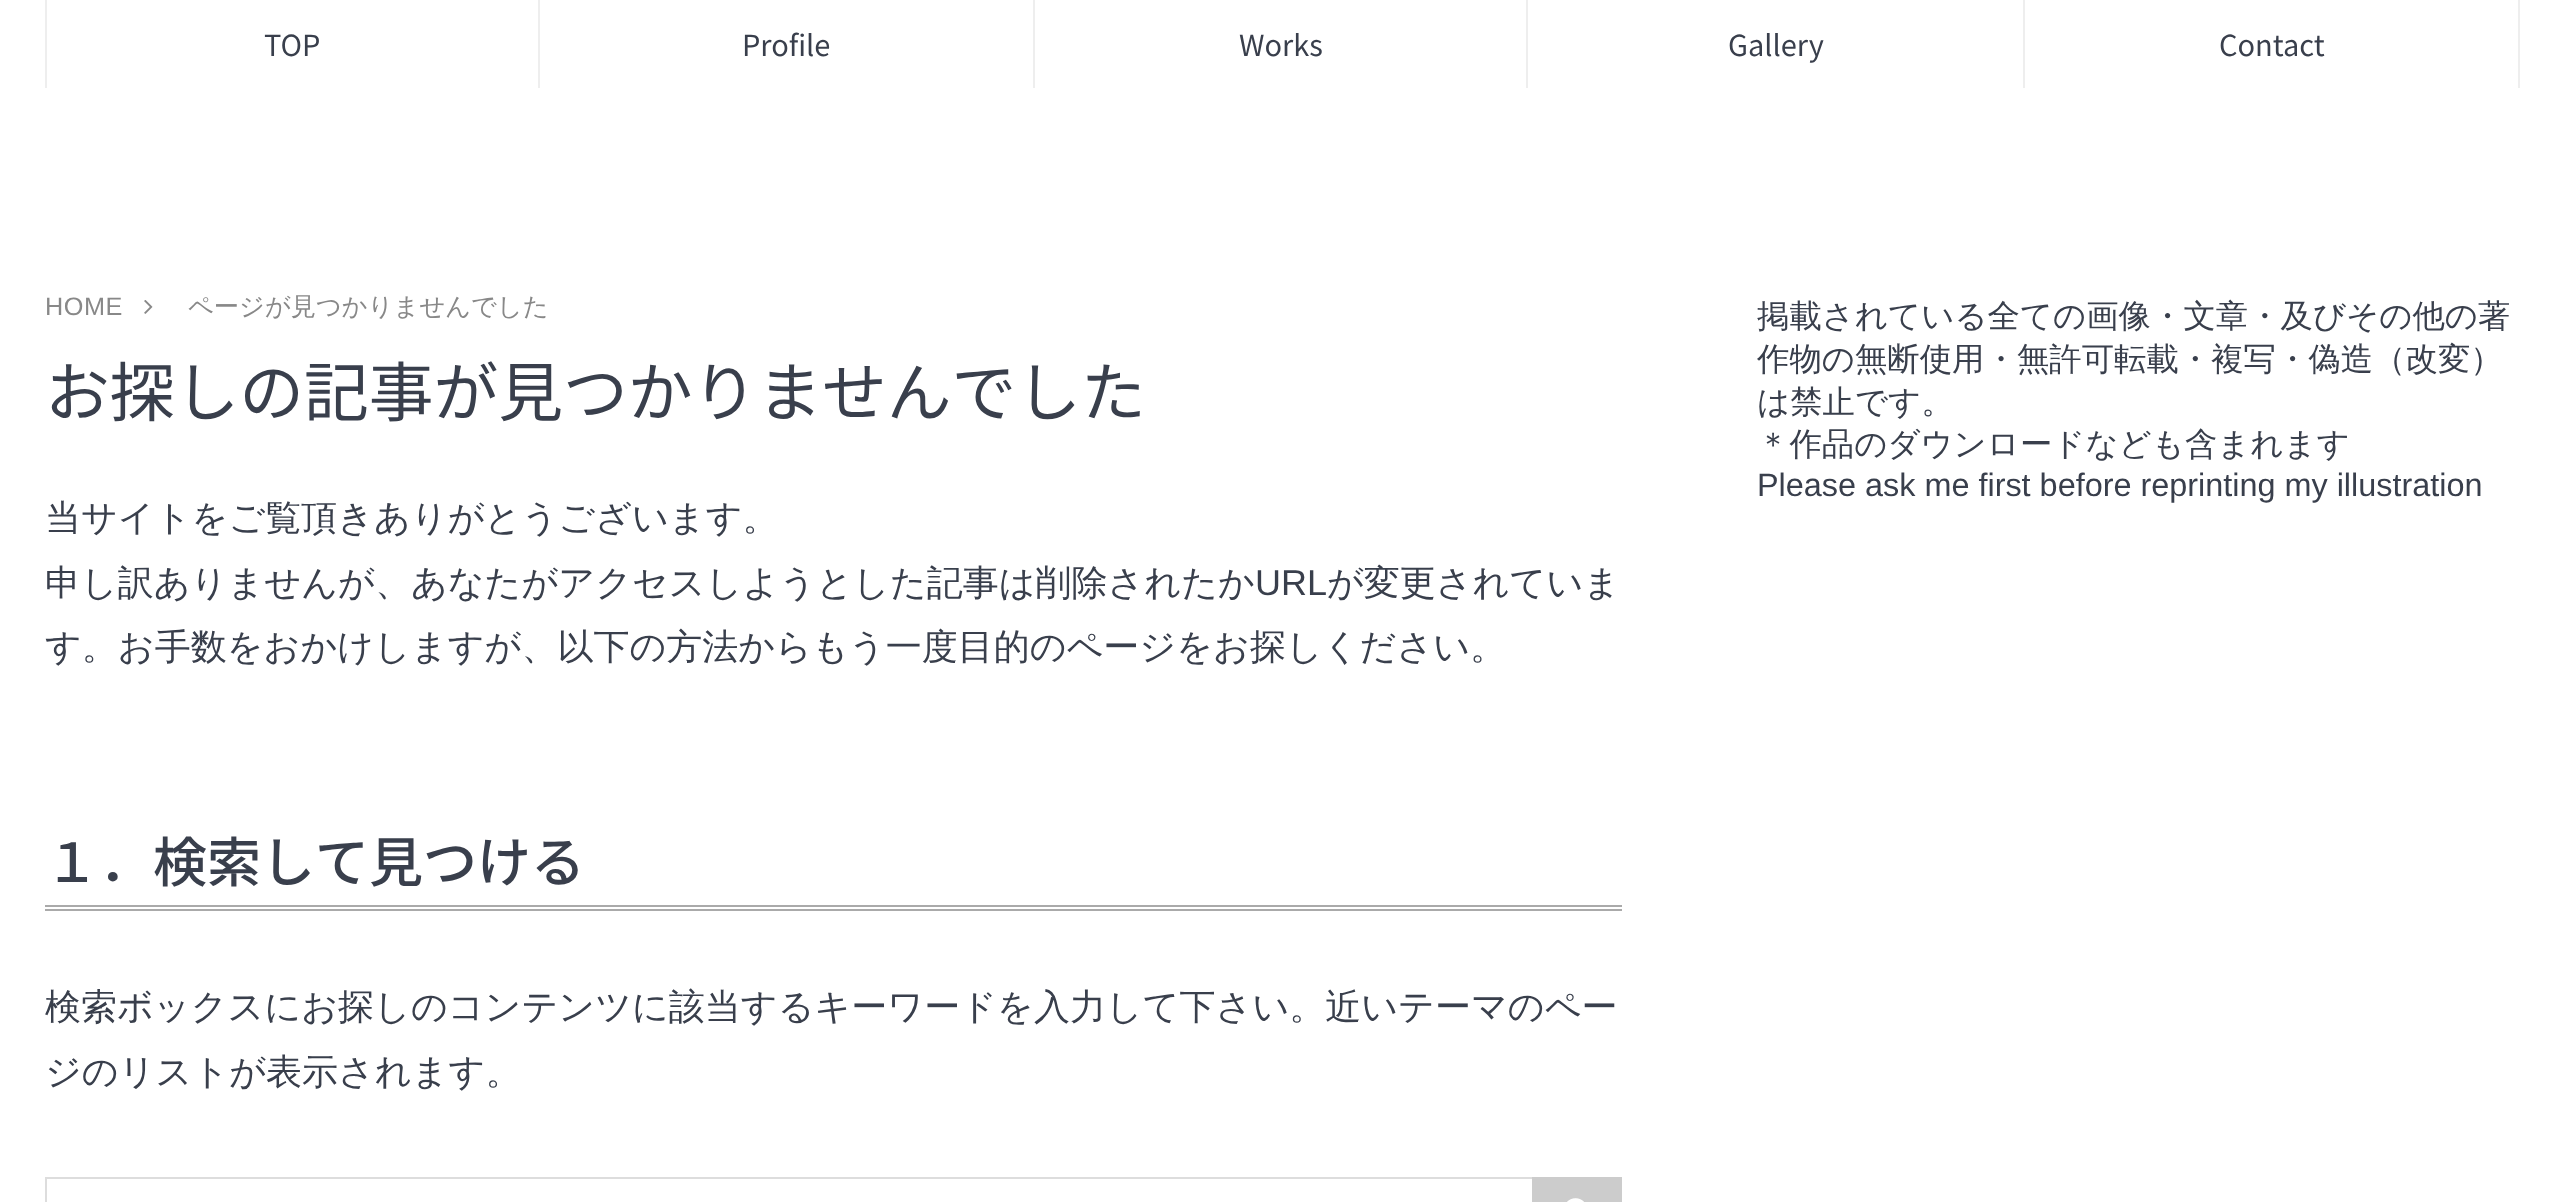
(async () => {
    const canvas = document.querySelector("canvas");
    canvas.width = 2564;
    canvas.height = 1202;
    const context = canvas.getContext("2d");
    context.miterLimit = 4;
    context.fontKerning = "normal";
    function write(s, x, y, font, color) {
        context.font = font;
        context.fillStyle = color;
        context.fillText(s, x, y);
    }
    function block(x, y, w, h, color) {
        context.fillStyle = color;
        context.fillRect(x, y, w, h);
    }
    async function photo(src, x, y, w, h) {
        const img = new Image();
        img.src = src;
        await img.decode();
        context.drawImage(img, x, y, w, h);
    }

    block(0, 0, 2564, 1202, "rgb(255, 255, 255)");
    block(45, 0, 2, 88, "rgb(238, 238, 238)");
    write("TOP", 264, 56, "29px Noto Sans JP", "rgb(57, 63, 76)");
    block(538, 0, 2, 88, "rgb(238, 238, 238)");
    write("Profile", 742, 56, "29px Noto Sans JP", "rgb(57, 63, 76)");
    block(1033, 0, 2, 88, "rgb(238, 238, 238)");
    write("Works", 1239, 56, "29px Noto Sans JP", "rgb(57, 63, 76)");
    block(1526, 0, 2, 88, "rgb(238, 238, 238)");
    write("Gallery", 1728, 56, "29px Noto Sans JP", "rgb(57, 63, 76)");
    block(2518, 0, 2, 88, "rgb(238, 238, 238)");
    block(2023, 0, 2, 88, "rgb(238, 238, 238)");
    write("Contact", 2219, 56, "29px Noto Sans JP", "rgb(57, 63, 76)");
    context.letterSpacing = "0.5px";
    write("HOME", 45, 315, "25.25px Liberation Sans", "rgb(136, 136, 136)");
    await photo("media/1.png", 144, 300, 9, 14);
    context.letterSpacing = "0px";
    write("ページが見つかりませんでした", 188, 315, "500 25.25px WenQuanYi Zen Hei", "rgb(136, 136, 136)");
    write("お探しの記事が見つかりませんでした", 45, 416, "64.75px Noto Sans JP", "rgb(57, 63, 76)");
    write("当サイトをご覧頂きありがとうございます。", 45, 530, "500 36px WenQuanYi Zen Hei", "rgb(57, 63, 76)");
    write("申し訳ありませんが、あなたがアクセスしようとした記事は削除されたか", 45, 595, "500 36px WenQuanYi Zen Hei", "rgb(57, 63, 76)");
    write("URL", 1255, 595, "36px Liberation Sans", "rgb(57, 63, 76)");
    write("が変更されていま", 1327, 595, "500 36px WenQuanYi Zen Hei", "rgb(57, 63, 76)");
    write("す。お手数をおかけしますが、以下の方法からもう一度目的のページをお探しください。", 45, 659, "500 36px WenQuanYi Zen Hei", "rgb(57, 63, 76)");
    block(45, 905, 1577, 2, "rgb(170, 170, 170)");
    block(45, 909, 1577, 2, "rgb(170, 170, 170)");
    write("１．検索して見つける", 45, 882, "500 54px Noto Sans JP", "rgb(57, 63, 76)");
    write("検索ボックスにお探しのコンテンツに該当するキーワードを入力して下さい。近いテーマのペー", 45, 1019, "500 36px WenQuanYi Zen Hei", "rgb(57, 63, 76)");
    write("ジのリストが表示されます。", 45, 1084, "500 36px WenQuanYi Zen Hei", "rgb(57, 63, 76)");
    context.strokeStyle = "rgb(221, 221, 221)";
    context.lineWidth = 2;
    context.strokeRect(46, 1178, 1575, 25);
    block(1532, 1177, 90, 25, "rgb(204, 204, 204)");
    await photo("media/2.png", 1567, 1198, 17, 4);
    write("掲載されている全ての画像・文章・及びその他の著", 1757, 327, "500 32.4px WenQuanYi Zen Hei", "rgb(57, 63, 76)");
    write("作物の無断使用・無許可転載・複写・偽造（改変）", 1757, 370, "500 32.4px WenQuanYi Zen Hei", "rgb(57, 63, 76)");
    write("は禁止です。", 1757, 413, "500 32.4px WenQuanYi Zen Hei", "rgb(57, 63, 76)");
    write("＊作品のダウンロードなども含まれます", 1757, 455, "500 32.4px WenQuanYi Zen Hei", "rgb(57, 63, 76)");
    write("Please ask me first before reprinting my illustration", 1757, 496, "32.4px Liberation Sans", "rgb(57, 63, 76)");
})();
